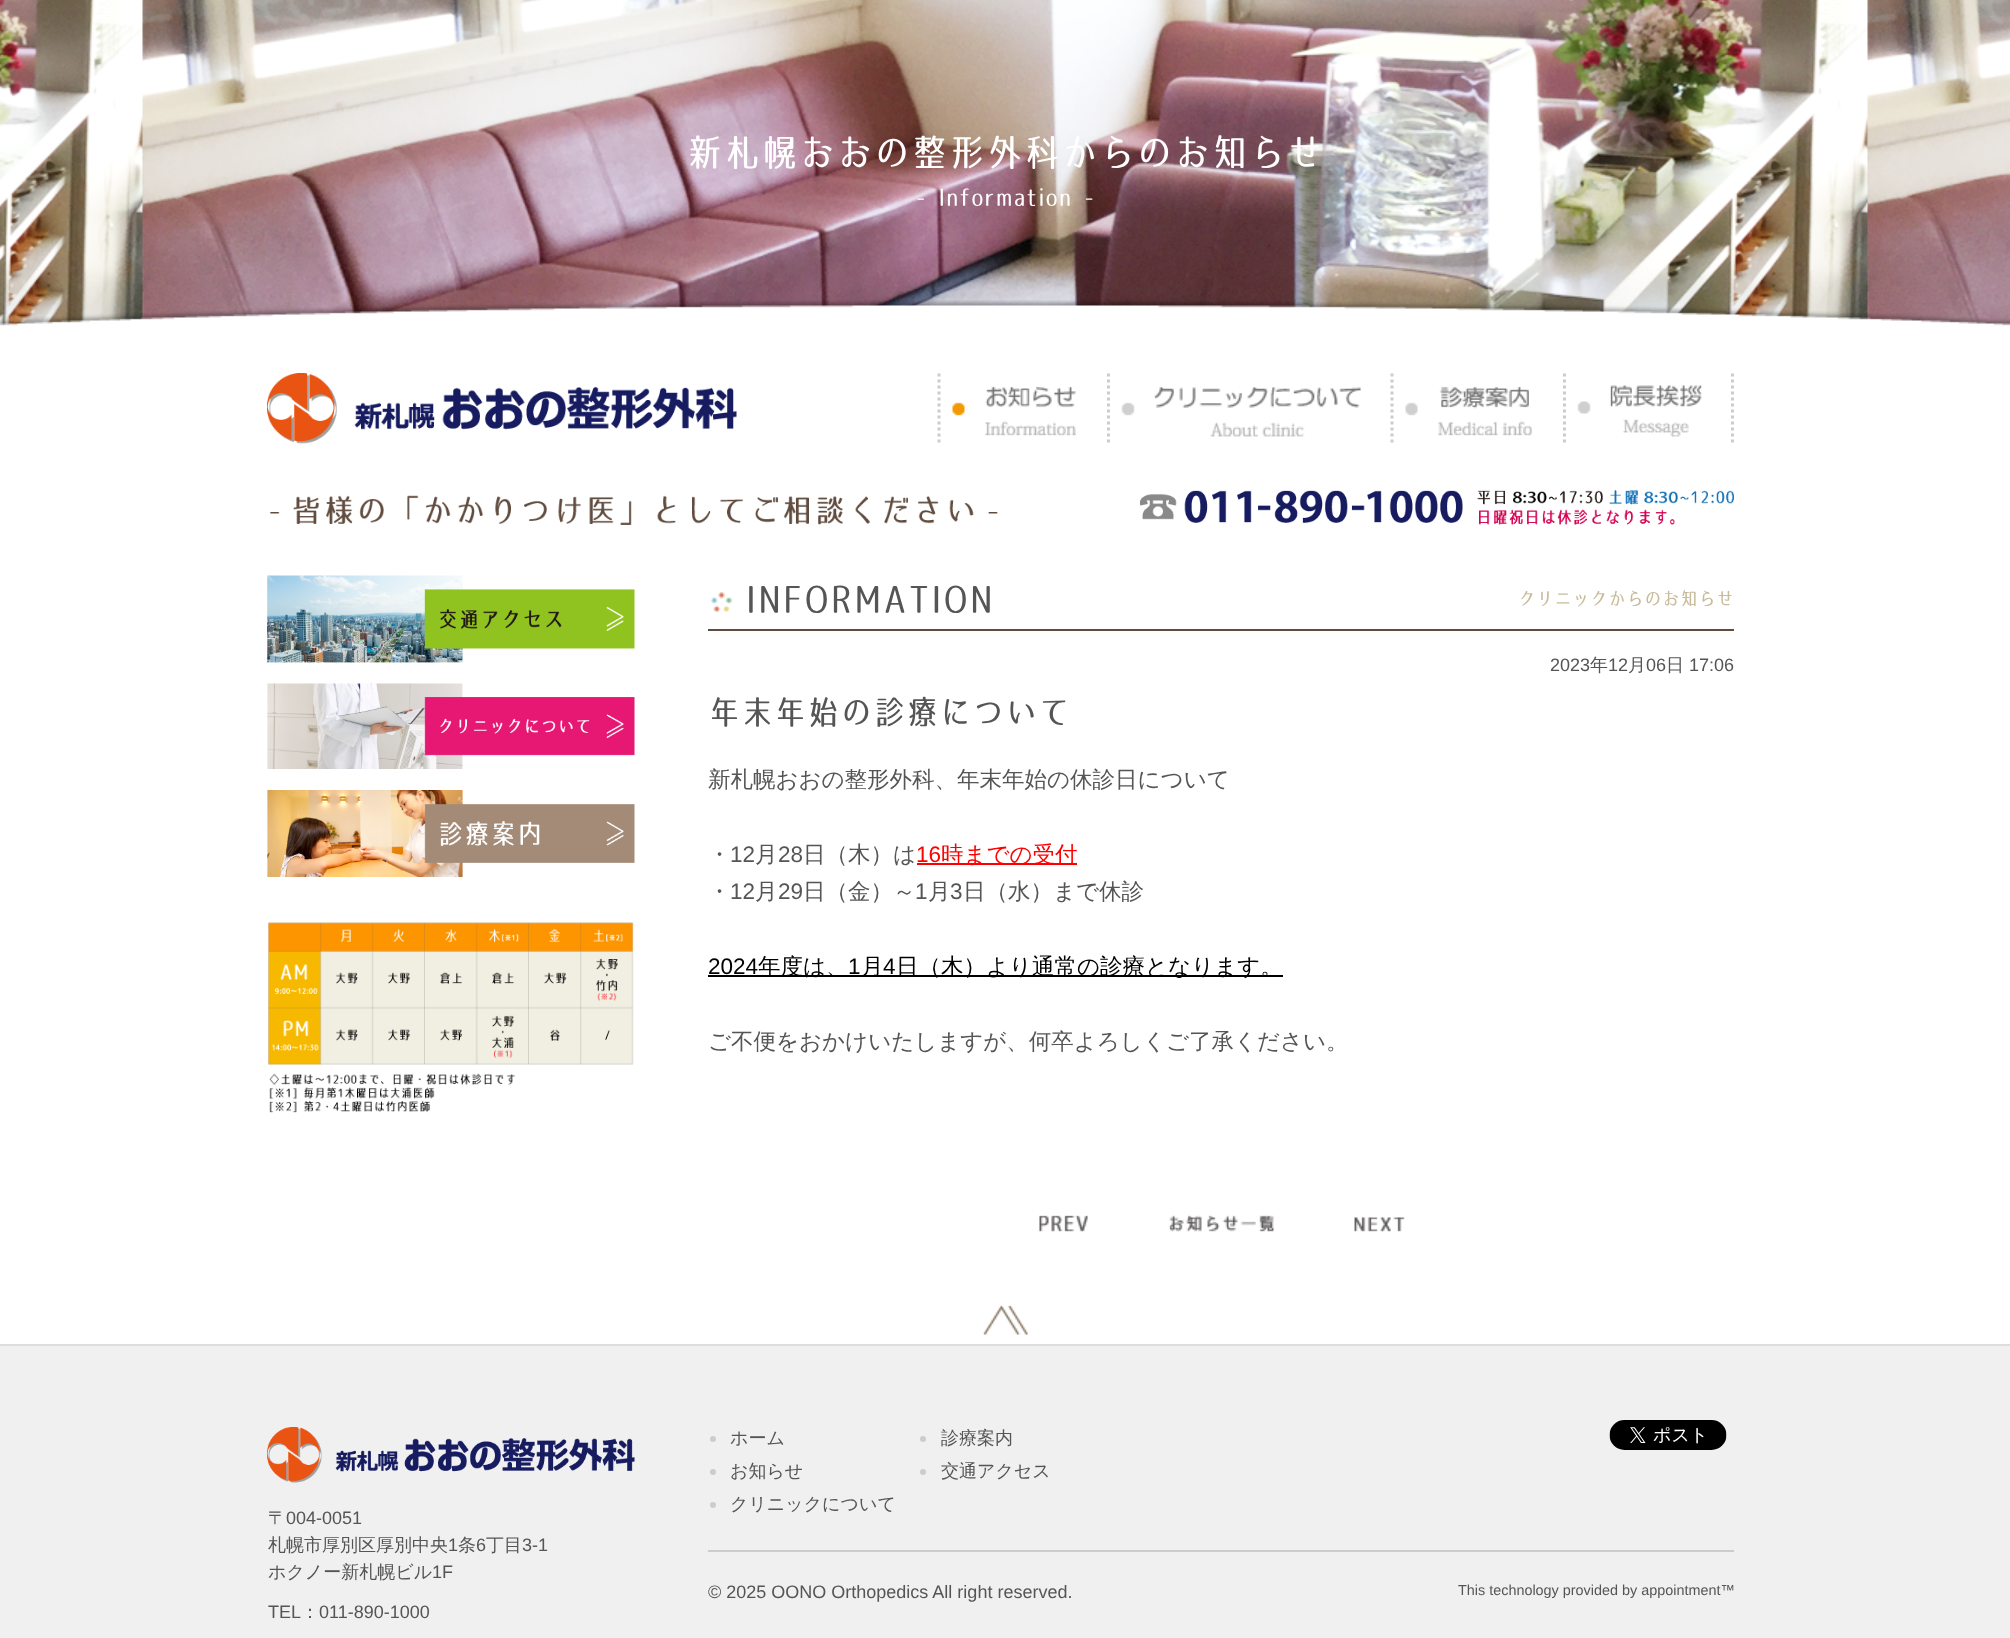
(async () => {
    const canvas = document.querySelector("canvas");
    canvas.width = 2010;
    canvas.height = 1638;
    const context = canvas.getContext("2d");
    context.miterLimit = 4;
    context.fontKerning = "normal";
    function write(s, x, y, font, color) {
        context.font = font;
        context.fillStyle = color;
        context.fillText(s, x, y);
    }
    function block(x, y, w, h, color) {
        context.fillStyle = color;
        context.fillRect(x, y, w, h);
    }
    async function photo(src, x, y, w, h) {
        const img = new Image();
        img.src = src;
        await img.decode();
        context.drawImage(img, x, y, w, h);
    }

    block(0, 0, 2010, 1638, "rgb(255, 255, 255)");
    await photo("media/1.png", 0, 0, 2010, 326);
    await photo("media/2.png", 0, 300, 2010, 73);
    write("新札幌おおの整形外科からのお知らせ", 686, 166, "37.5px '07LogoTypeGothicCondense'", "rgb(255, 255, 255)");
    write("- Information -", 915, 206, "24px '07LogoTypeGothicCondense'", "rgb(255, 255, 255)");
    await photo("media/3.png", 267, 373, 470, 71);
    await photo("media/4.png", 952, 402, 13, 14);
    context.beginPath();
    context.moveTo(939, 373.5);
    context.lineTo(939, 444);
    context.strokeStyle = "rgb(204, 204, 204)";
    context.lineWidth = 3;
    context.setLineDash([3, 3]);
    context.stroke();
    await photo("media/5.png", 985, 386, 91, 50);
    await photo("media/6.png", 1121, 402, 14, 14);
    context.beginPath();
    context.moveTo(1108.5, 373.5);
    context.lineTo(1108.5, 445.5);
    context.stroke();
    await photo("media/7.png", 1154, 387, 207, 50);
    await photo("media/8.png", 1405, 402, 13, 14);
    context.beginPath();
    context.moveTo(1392, 373.5);
    context.lineTo(1392, 444);
    context.stroke();
    await photo("media/9.png", 1438, 386, 94, 50);
    await photo("media/10.png", 1577, 401, 14, 13);
    context.beginPath();
    context.moveTo(1732.5, 373.5);
    context.lineTo(1732.5, 442.5);
    context.stroke();
    context.beginPath();
    context.moveTo(1564.5, 373.5);
    context.lineTo(1564.5, 442.5);
    context.stroke();
    await photo("media/11.png", 1610, 385, 92, 52);
    await photo("media/12.png", 269, 495, 729, 30);
    await photo("media/13.png", 1140, 490, 323, 33);
    await photo("media/14.png", 1477, 490, 257, 35);
    await photo("media/15.png", 267, 575, 368, 88);
    await photo("media/16.png", 267, 683, 368, 86);
    await photo("media/17.png", 267, 790, 368, 87);
    await photo("media/18.png", 268, 922, 366, 191);
    await photo("media/19.png", 710, 592, 23, 20);
    block(708, 629, 1026, 2, "rgb(96, 76, 63)");
    write("INFORMATION", 745, 613, "37.5px '07LogoTypeGothicCondense'", "rgb(85, 85, 85)");
    write("クリニックからのお知らせ", 1518, 605, "18px '07LogoTypeGothicCondense'", "rgb(201, 188, 156)");
    write("2023", 1550, 671, "18px Liberation Sans", "rgb(85, 85, 85)");
    write("年", 1590, 671, "500 18px WenQuanYi Zen Hei", "rgb(85, 85, 85)");
    write("12", 1608, 671, "18px Liberation Sans", "rgb(85, 85, 85)");
    write("月", 1628, 671, "500 18px WenQuanYi Zen Hei", "rgb(85, 85, 85)");
    write("06", 1646, 671, "18px Liberation Sans", "rgb(85, 85, 85)");
    write("日", 1666, 671, "500 18px WenQuanYi Zen Hei", "rgb(85, 85, 85)");
    write("17:06", 1689, 671, "18px Liberation Sans", "rgb(85, 85, 85)");
    write("年末年始の診療について", 708, 724, "33px '07LogoTypeGothicCondense'", "rgb(85, 85, 85)");
    write("新札幌おおの整形外科、年末年始の休診日について", 708, 787, "500 22.5px WenQuanYi Zen Hei", "rgb(85, 85, 85)");
    write("・", 708, 862, "500 22.5px WenQuanYi Zen Hei", "rgb(85, 85, 85)");
    write("12", 730, 862, "22.5px Liberation Sans", "rgb(85, 85, 85)");
    write("月", 755, 862, "500 22.5px WenQuanYi Zen Hei", "rgb(85, 85, 85)");
    write("28", 778, 862, "22.5px Liberation Sans", "rgb(85, 85, 85)");
    write("日（木）は", 803, 862, "500 22.5px WenQuanYi Zen Hei", "rgb(85, 85, 85)");
    write("16", 916, 862, "22.5px Liberation Sans", "rgb(255, 0, 0)");
    block(917, 863, 160, 2, "rgb(255, 0, 0)");
    write("時までの受付", 941, 862, "500 22.5px WenQuanYi Zen Hei", "rgb(255, 0, 0)");
    write("・", 708, 899, "500 22.5px WenQuanYi Zen Hei", "rgb(85, 85, 85)");
    write("12", 730, 899, "22.5px Liberation Sans", "rgb(85, 85, 85)");
    write("月", 755, 899, "500 22.5px WenQuanYi Zen Hei", "rgb(85, 85, 85)");
    write("29", 778, 899, "22.5px Liberation Sans", "rgb(85, 85, 85)");
    write("日（金）～", 803, 899, "500 22.5px WenQuanYi Zen Hei", "rgb(85, 85, 85)");
    write("1", 915, 899, "22.5px Liberation Sans", "rgb(85, 85, 85)");
    write("月", 928, 899, "500 22.5px WenQuanYi Zen Hei", "rgb(85, 85, 85)");
    write("3", 950, 899, "22.5px Liberation Sans", "rgb(85, 85, 85)");
    write("日（水）まで休診", 963, 899, "500 22.5px WenQuanYi Zen Hei", "rgb(85, 85, 85)");
    write("2024", 708, 974, "22.5px Liberation Sans", "rgb(0, 0, 0)");
    block(708, 975, 575, 2, "rgb(0, 0, 0)");
    write("年度は、", 758, 974, "500 22.5px WenQuanYi Zen Hei", "rgb(0, 0, 0)");
    write("1", 848, 974, "22.5px Liberation Sans", "rgb(0, 0, 0)");
    write("月", 861, 974, "500 22.5px WenQuanYi Zen Hei", "rgb(0, 0, 0)");
    write("4", 883, 974, "22.5px Liberation Sans", "rgb(0, 0, 0)");
    write("日（木）より通常の診療となります。", 896, 974, "500 22.5px WenQuanYi Zen Hei", "rgb(0, 0, 0)");
    write("ご不便をおかけいたしますが、何卒よろしくご了承ください。", 708, 1049, "500 22.5px WenQuanYi Zen Hei", "rgb(85, 85, 85)");
    await photo("media/20.png", 1039, 1215, 49, 17);
    await photo("media/21.png", 1169, 1215, 105, 17);
    await photo("media/22.png", 1354, 1217, 51, 15);
    await photo("media/23.png", 983, 1305, 45, 30);
    block(0, 1346, 2010, 292, "rgb(240, 240, 240)");
    block(0, 1344, 2010, 2, "rgb(221, 221, 221)");
    await photo("media/24.png", 267, 1427, 368, 56);
    write("〒", 268, 1524, "500 18px WenQuanYi Zen Hei", "rgb(85, 85, 85)");
    write("004-0051", 286, 1524, "18px Liberation Sans", "rgb(85, 85, 85)");
    write("札幌市厚別区厚別中央", 268, 1551, "500 18px WenQuanYi Zen Hei", "rgb(85, 85, 85)");
    write("1", 448, 1551, "18px Liberation Sans", "rgb(85, 85, 85)");
    write("条", 458, 1551, "500 18px WenQuanYi Zen Hei", "rgb(85, 85, 85)");
    write("6", 476, 1551, "18px Liberation Sans", "rgb(85, 85, 85)");
    write("丁目", 486, 1551, "500 18px WenQuanYi Zen Hei", "rgb(85, 85, 85)");
    write("3-1", 522, 1551, "18px Liberation Sans", "rgb(85, 85, 85)");
    write("ホクノー新札幌ビル", 268, 1578, "500 18px WenQuanYi Zen Hei", "rgb(85, 85, 85)");
    write("1F", 432, 1578, "18px Liberation Sans", "rgb(85, 85, 85)");
    write("TEL", 268, 1618, "18px Liberation Sans", "rgb(85, 85, 85)");
    write("：", 301, 1618, "500 18px WenQuanYi Zen Hei", "rgb(85, 85, 85)");
    write("011-890-1000", 319, 1618, "18px Liberation Sans", "rgb(85, 85, 85)");
    block(708, 1550, 1026, 2, "rgb(204, 204, 204)");
    context.beginPath();
    context.arc(713, 1439, 3, 0, Math.PI * 2);
    context.fill();
    write("ホーム", 730, 1444, "500 18px WenQuanYi Zen Hei", "rgb(85, 85, 85)");
    context.fillStyle = "rgb(204, 204, 204)";
    context.beginPath();
    context.arc(713, 1472, 3, 0, Math.PI * 2);
    context.fill();
    write("お知らせ", 730, 1477, "500 18px WenQuanYi Zen Hei", "rgb(85, 85, 85)");
    context.fillStyle = "rgb(204, 204, 204)";
    context.beginPath();
    context.arc(713, 1505, 3, 0, Math.PI * 2);
    context.fill();
    write("クリニックについて", 730, 1510, "500 18px WenQuanYi Zen Hei", "rgb(85, 85, 85)");
    context.fillStyle = "rgb(204, 204, 204)";
    context.beginPath();
    context.arc(923, 1439, 3, 0, Math.PI * 2);
    context.fill();
    write("診療案内", 941, 1444, "500 18px WenQuanYi Zen Hei", "rgb(85, 85, 85)");
    context.fillStyle = "rgb(204, 204, 204)";
    context.beginPath();
    context.arc(923, 1472, 3, 0, Math.PI * 2);
    context.fill();
    write("交通アクセス", 941, 1477, "500 18px WenQuanYi Zen Hei", "rgb(85, 85, 85)");
    await photo("media/25.png", 1609, 1420, 118, 30);
    write("© 2025 OONO Orthopedics All right reserved.", 708, 1598, "18px Liberation Sans", "rgb(85, 85, 85)");
    write("This technology provided by appointment™", 1458, 1595, "14.4px Liberation Sans", "rgb(85, 85, 85)");
})();
